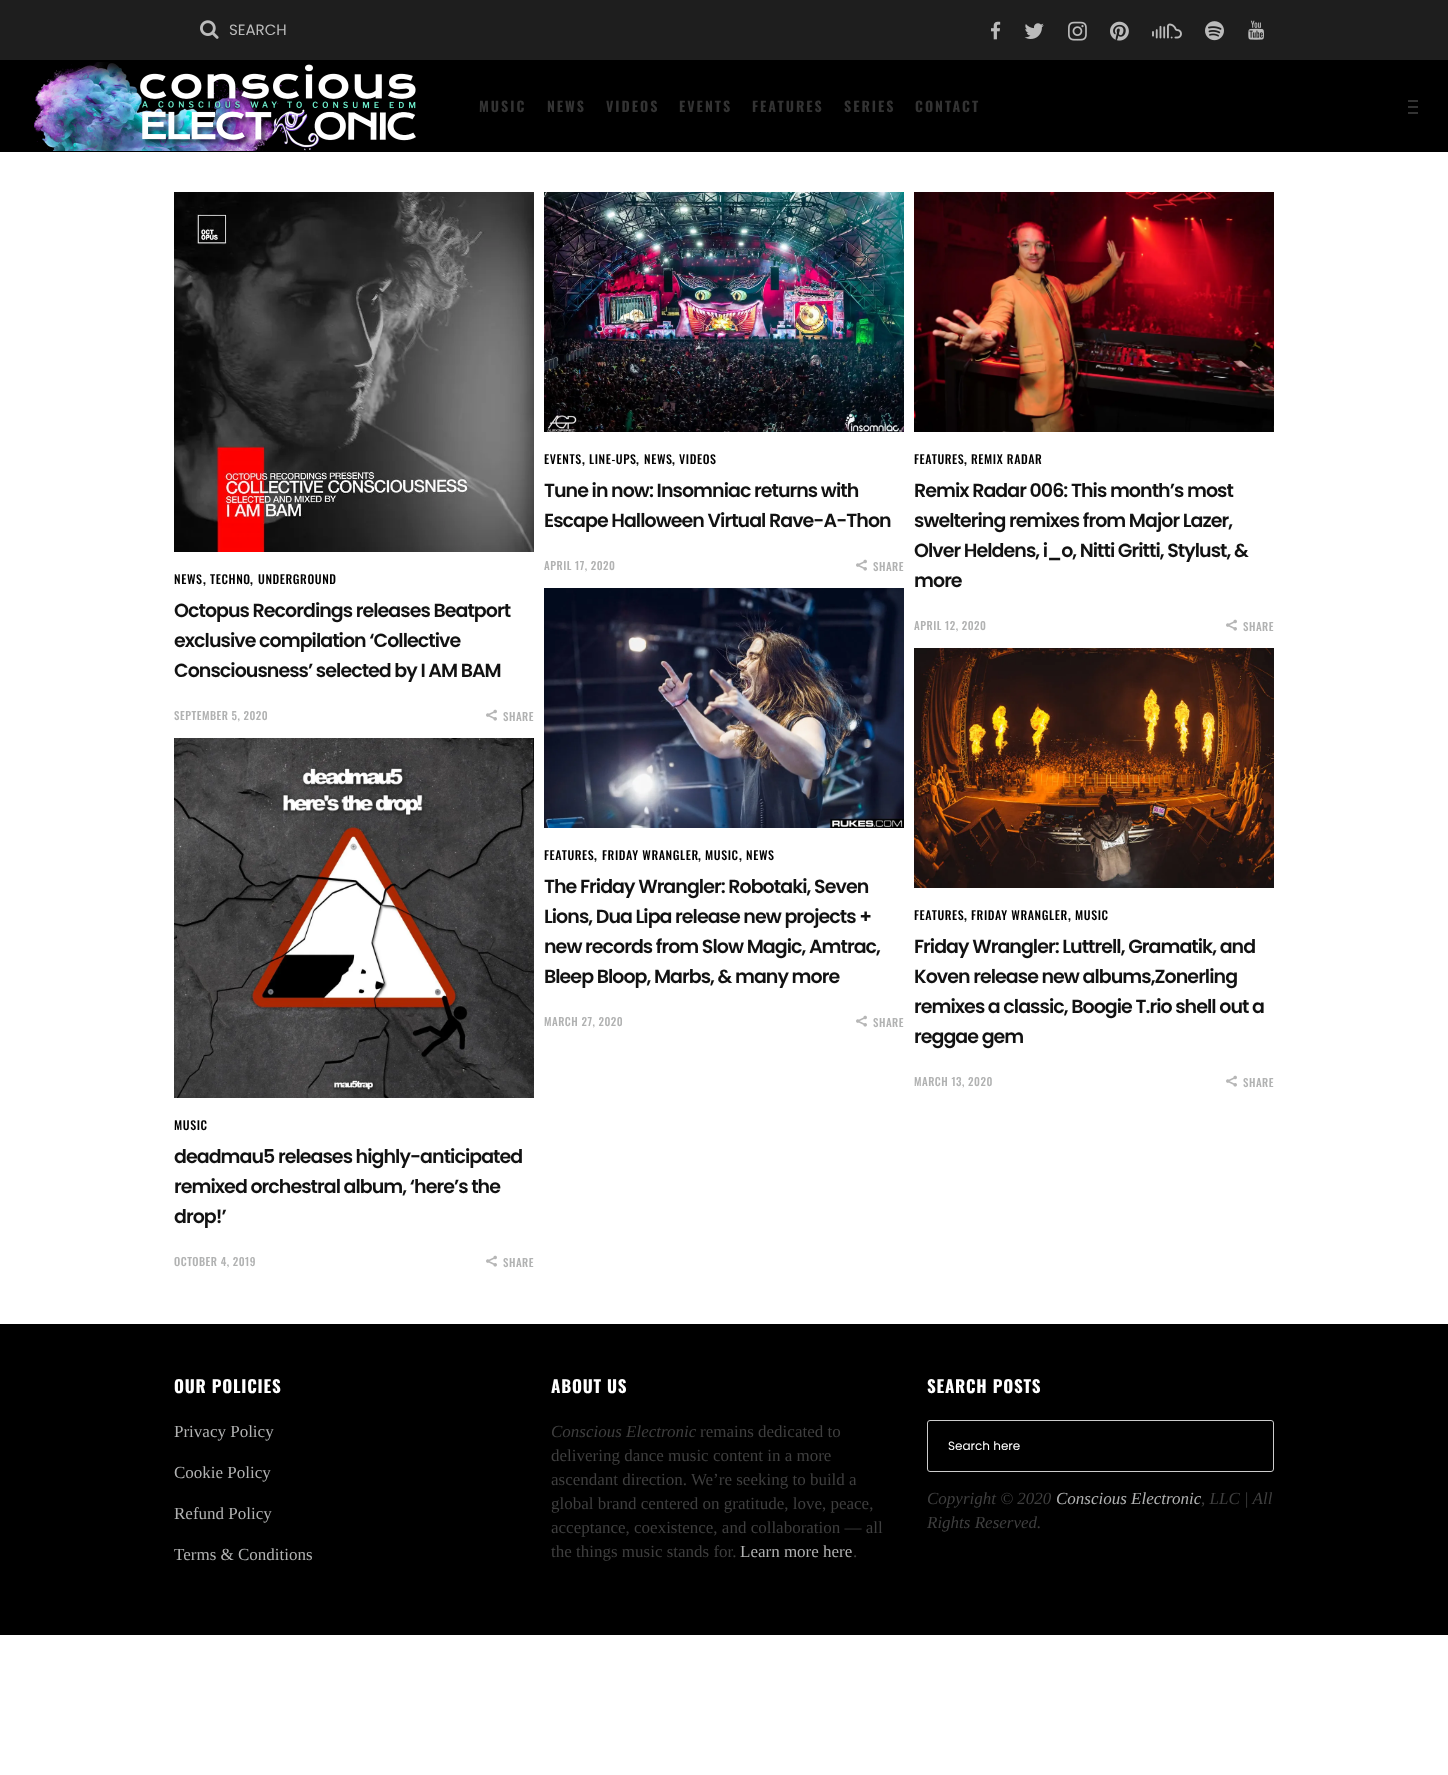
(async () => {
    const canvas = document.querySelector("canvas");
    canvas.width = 1448;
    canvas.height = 1775;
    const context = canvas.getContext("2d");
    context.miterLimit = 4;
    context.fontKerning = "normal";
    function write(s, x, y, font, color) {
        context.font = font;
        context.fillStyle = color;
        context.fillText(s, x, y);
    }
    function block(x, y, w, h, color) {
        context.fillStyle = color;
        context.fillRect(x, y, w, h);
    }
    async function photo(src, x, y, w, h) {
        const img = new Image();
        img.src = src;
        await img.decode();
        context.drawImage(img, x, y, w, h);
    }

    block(0, 0, 1448, 1775, "rgb(255, 255, 255)");
    block(0, 0, 1448, 60, "rgb(30, 30, 30)");
    await photo("media/1.png", 200, 20, 19, 19);
    write("SEARCH", 229, 35, "15px Poppins", "rgb(187, 187, 187)");
    await photo("media/2.png", 991, 21, 10, 19);
    await photo("media/3.png", 1024, 23, 20, 16);
    await photo("media/4.png", 1068, 21, 19, 20);
    await photo("media/5.png", 1110, 21, 19, 20);
    await photo("media/6.png", 1152, 23, 30, 16);
    await photo("media/7.png", 1205, 21, 19, 20);
    await photo("media/8.png", 1248, 20, 16, 20);
    block(0, 60, 1448, 92, "rgb(0, 0, 0)");
    await photo("media/9.png", 34, 62, 382, 89);
    context.letterSpacing = "2px";
    write("MUSIC", 479, 112, "bold 14px Oswald", "rgb(51, 51, 51)");
    write("NEWS", 547, 112, "bold 14px Oswald", "rgb(51, 51, 51)");
    write("VIDEOS", 606, 112, "bold 14px Oswald", "rgb(51, 51, 51)");
    write("EVENTS", 679, 112, "bold 14px Oswald", "rgb(51, 51, 51)");
    write("FEATURES", 752, 112, "bold 14px Oswald", "rgb(51, 51, 51)");
    write("SERIES", 844, 112, "bold 14px Oswald", "rgb(51, 51, 51)");
    write("CONTACT", 915, 112, "bold 14px Oswald", "rgb(51, 51, 51)");
    block(1408, 100, 10, 2, "rgb(51, 51, 51)");
    block(1408, 106, 10, 2, "rgb(51, 51, 51)");
    block(1408, 112, 10, 2, "rgb(51, 51, 51)");
    await photo("media/10.png", 544, 192, 360, 240);
    context.letterSpacing = "0.6px";
    write("EVENTS", 544, 464, "500 12px Oswald", "rgb(0, 0, 0)");
    write(",", 582, 464, "bold 12px Oswald", "rgb(0, 0, 0)");
    write("LINE-UPS", 589, 464, "500 12px Oswald", "rgb(0, 0, 0)");
    write(",", 636, 464, "bold 12px Oswald", "rgb(0, 0, 0)");
    write("NEWS", 644, 464, "500 12px Oswald", "rgb(0, 0, 0)");
    write(",", 672, 464, "bold 12px Oswald", "rgb(0, 0, 0)");
    write("VIDEOS", 679, 464, "500 12px Oswald", "rgb(0, 0, 0)");
    context.letterSpacing = "-0.95px";
    write("Tune in now: Insomniac returns with", 544, 497, "600 19px Poppins", "rgb(18, 18, 18)");
    write("Escape Halloween Virtual Rave-A-Thon", 544, 527, "600 19px Poppins", "rgb(18, 18, 18)");
    context.letterSpacing = "0.5px";
    write("APRIL 17, 2020", 544, 570, "500 11px Oswald", "rgb(177, 178, 178)");
    await photo("media/11.png", 856, 559, 11, 12);
    write("SHARE", 873, 571, "500 11px Oswald", "rgb(177, 178, 178)");
    await photo("media/12.png", 914, 192, 360, 240);
    context.letterSpacing = "0.6px";
    write("FEATURES", 914, 464, "500 12px Oswald", "rgb(0, 0, 0)");
    write(",", 964, 464, "bold 12px Oswald", "rgb(0, 0, 0)");
    write("REMIX RADAR", 971, 464, "500 12px Oswald", "rgb(0, 0, 0)");
    context.letterSpacing = "-0.95px";
    write("Remix Radar 006: This month’s most", 914, 497, "600 19px Poppins", "rgb(18, 18, 18)");
    write("sweltering remixes from Major Lazer,", 914, 527, "600 19px Poppins", "rgb(18, 18, 18)");
    write("Olver Heldens, i_o, Nitti Gritti, Stylust, &", 914, 557, "600 19px Poppins", "rgb(18, 18, 18)");
    write("more", 914, 587, "600 19px Poppins", "rgb(18, 18, 18)");
    context.letterSpacing = "0.5px";
    write("APRIL 12, 2020", 914, 630, "500 11px Oswald", "rgb(177, 178, 178)");
    await photo("media/11.png", 1226, 619, 11, 12);
    write("SHARE", 1243, 631, "500 11px Oswald", "rgb(177, 178, 178)");
    await photo("media/13.png", 174, 192, 360, 360);
    context.letterSpacing = "0.6px";
    write("NEWS", 174, 584, "500 12px Oswald", "rgb(0, 0, 0)");
    write(",", 203, 584, "bold 12px Oswald", "rgb(0, 0, 0)");
    write("TECHNO", 210, 584, "500 12px Oswald", "rgb(0, 0, 0)");
    write(",", 250, 584, "bold 12px Oswald", "rgb(0, 0, 0)");
    write("UNDERGROUND", 258, 584, "500 12px Oswald", "rgb(0, 0, 0)");
    context.letterSpacing = "-0.95px";
    write("Octopus Recordings releases Beatport", 174, 617, "600 19px Poppins", "rgb(18, 18, 18)");
    write("exclusive compilation ‘Collective", 174, 647, "600 19px Poppins", "rgb(18, 18, 18)");
    write("Consciousness’ selected by I AM BAM", 174, 677, "600 19px Poppins", "rgb(18, 18, 18)");
    context.letterSpacing = "0.5px";
    write("SEPTEMBER 5, 2020", 174, 720, "500 11px Oswald", "rgb(177, 178, 178)");
    await photo("media/11.png", 486, 709, 11, 12);
    write("SHARE", 503, 721, "500 11px Oswald", "rgb(177, 178, 178)");
    await photo("media/14.png", 544, 588, 360, 240);
    context.letterSpacing = "0.6px";
    write("FEATURES", 544, 860, "500 12px Oswald", "rgb(0, 0, 0)");
    write(",", 594, 860, "bold 12px Oswald", "rgb(0, 0, 0)");
    write("FRIDAY WRANGLER", 602, 860, "500 12px Oswald", "rgb(0, 0, 0)");
    write(",", 698, 860, "bold 12px Oswald", "rgb(0, 0, 0)");
    write("MUSIC", 705, 860, "500 12px Oswald", "rgb(0, 0, 0)");
    write(",", 739, 860, "bold 12px Oswald", "rgb(0, 0, 0)");
    write("NEWS", 746, 860, "500 12px Oswald", "rgb(0, 0, 0)");
    context.letterSpacing = "-0.95px";
    write("The Friday Wrangler: Robotaki, Seven", 544, 893, "600 19px Poppins", "rgb(18, 18, 18)");
    write("Lions, Dua Lipa release new projects +", 544, 923, "600 19px Poppins", "rgb(18, 18, 18)");
    write("new records from Slow Magic, Amtrac,", 544, 953, "600 19px Poppins", "rgb(18, 18, 18)");
    write("Bleep Bloop, Marbs, & many more", 544, 983, "600 19px Poppins", "rgb(18, 18, 18)");
    context.letterSpacing = "0.5px";
    write("MARCH 27, 2020", 544, 1026, "500 11px Oswald", "rgb(177, 178, 178)");
    await photo("media/11.png", 856, 1015, 11, 12);
    write("SHARE", 873, 1027, "500 11px Oswald", "rgb(177, 178, 178)");
    await photo("media/15.png", 914, 648, 360, 240);
    context.letterSpacing = "0.6px";
    write("FEATURES", 914, 920, "500 12px Oswald", "rgb(0, 0, 0)");
    write(",", 964, 920, "bold 12px Oswald", "rgb(0, 0, 0)");
    write("FRIDAY WRANGLER", 971, 920, "500 12px Oswald", "rgb(0, 0, 0)");
    write(",", 1068, 920, "bold 12px Oswald", "rgb(0, 0, 0)");
    write("MUSIC", 1075, 920, "500 12px Oswald", "rgb(0, 0, 0)");
    context.letterSpacing = "-0.95px";
    write("Friday Wrangler: Luttrell, Gramatik, and", 914, 953, "600 19px Poppins", "rgb(18, 18, 18)");
    write("Koven release new albums,Zonerling", 914, 983, "600 19px Poppins", "rgb(18, 18, 18)");
    write("remixes a classic, Boogie T.rio shell out a", 914, 1013, "600 19px Poppins", "rgb(18, 18, 18)");
    write("reggae gem", 914, 1043, "600 19px Poppins", "rgb(18, 18, 18)");
    context.letterSpacing = "0.5px";
    write("MARCH 13, 2020", 914, 1086, "500 11px Oswald", "rgb(177, 178, 178)");
    await photo("media/11.png", 1226, 1075, 11, 12);
    write("SHARE", 1243, 1087, "500 11px Oswald", "rgb(177, 178, 178)");
    await photo("media/16.png", 174, 738, 360, 360);
    context.letterSpacing = "0.6px";
    write("MUSIC", 174, 1130, "500 12px Oswald", "rgb(0, 0, 0)");
    context.letterSpacing = "-0.95px";
    write("deadmau5 releases highly-anticipated", 174, 1163, "600 19px Poppins", "rgb(18, 18, 18)");
    write("remixed orchestral album, ‘here’s the", 174, 1193, "600 19px Poppins", "rgb(18, 18, 18)");
    write("drop!’", 174, 1223, "600 19px Poppins", "rgb(18, 18, 18)");
    context.letterSpacing = "0.5px";
    write("OCTOBER 4, 2019", 174, 1266, "500 11px Oswald", "rgb(177, 178, 178)");
    await photo("media/11.png", 486, 1255, 11, 12);
    write("SHARE", 503, 1267, "500 11px Oswald", "rgb(177, 178, 178)");
    block(0, 1324, 1448, 311, "rgb(0, 0, 0)");
    context.letterSpacing = "0.8px";
    write("OUR POLICIES", 174, 1393, "bold 17px Oswald", "rgb(255, 255, 255)");
    context.letterSpacing = "0px";
    write("Privacy Policy", 174, 1437, "17px Liberation Serif", "rgb(177, 178, 178)");
    write("Cookie Policy", 174, 1478, "17px Liberation Serif", "rgb(177, 178, 178)");
    write("Refund Policy", 174, 1519, "17px Liberation Serif", "rgb(177, 178, 178)");
    write("Terms & Conditions", 174, 1560, "17px Liberation Serif", "rgb(177, 178, 178)");
    context.letterSpacing = "0.8px";
    write("ABOUT US", 551, 1393, "bold 17px Oswald", "rgb(255, 255, 255)");
    context.letterSpacing = "0px";
    write("Conscious Electronic", 551, 1437, "italic 17px Liberation Serif", "rgb(63, 63, 63)");
    write("remains dedicated to", 700, 1437, "17px Liberation Serif", "rgb(63, 63, 63)");
    write("delivering dance music content in a more", 551, 1461, "17px Liberation Serif", "rgb(63, 63, 63)");
    write("ascendant direction. We’re seeking to build a", 551, 1485, "17px Liberation Serif", "rgb(63, 63, 63)");
    write("global brand centered on gratitude, love, peace,", 551, 1509, "17px Liberation Serif", "rgb(63, 63, 63)");
    write("acceptance, coexistence, and collaboration — all", 551, 1533, "17px Liberation Serif", "rgb(63, 63, 63)");
    write("the things music stands for.", 551, 1557, "17px Liberation Serif", "rgb(63, 63, 63)");
    write("Learn more here", 740, 1557, "17px Liberation Serif", "rgb(177, 178, 178)");
    write(".", 853, 1557, "17px Liberation Serif", "rgb(63, 63, 63)");
    context.letterSpacing = "0.8px";
    write("SEARCH POSTS", 927, 1393, "bold 17px Oswald", "rgb(255, 255, 255)");
    context.beginPath();
    context.roundRect(927.5, 1420.5, 346, 51, 2.5);
    context.strokeStyle = "rgb(204, 204, 204)";
    context.stroke();
    context.letterSpacing = "0px";
    write("Search here", 948, 1450, "12px Poppins", "rgb(255, 255, 255)");
    write("Copyright © 2020", 927, 1504, "italic 17px Liberation Serif", "rgb(63, 63, 63)");
    write("Conscious Electronic", 1056, 1504, "italic 17px Liberation Serif", "rgb(177, 178, 178)");
    write(", LLC | All", 1201, 1504, "italic 17px Liberation Serif", "rgb(63, 63, 63)");
    write("Rights Reserved.", 927, 1528, "italic 17px Liberation Serif", "rgb(63, 63, 63)");
})();
